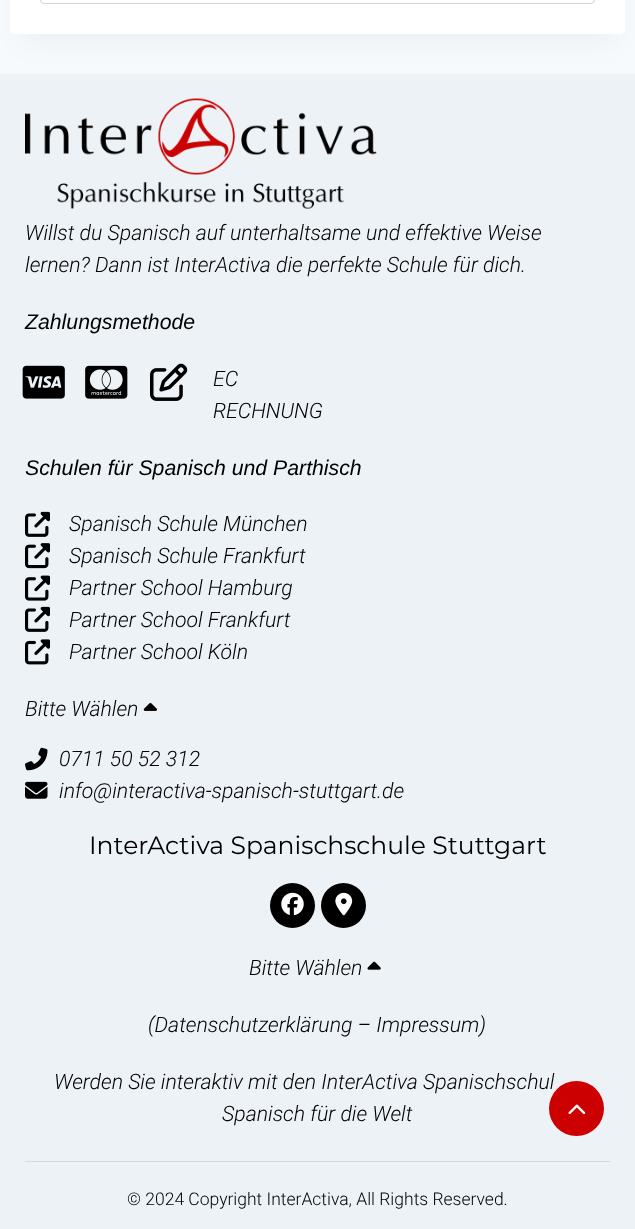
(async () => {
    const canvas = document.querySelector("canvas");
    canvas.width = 635;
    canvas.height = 1229;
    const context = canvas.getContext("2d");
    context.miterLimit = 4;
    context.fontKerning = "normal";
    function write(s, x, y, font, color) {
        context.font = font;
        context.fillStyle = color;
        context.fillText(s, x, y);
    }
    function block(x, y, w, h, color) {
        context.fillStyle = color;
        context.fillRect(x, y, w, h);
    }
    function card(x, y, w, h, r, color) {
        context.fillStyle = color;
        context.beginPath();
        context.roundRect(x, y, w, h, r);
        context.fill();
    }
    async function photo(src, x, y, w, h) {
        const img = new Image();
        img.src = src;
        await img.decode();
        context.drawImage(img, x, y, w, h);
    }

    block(0, 0, 635, 1229, "rgb(247, 250, 252)");
    block(0, 74, 635, 1155, "rgb(237, 242, 247)");
    context.fillStyle = "rgba(0, 0, 0, 0.05)";
    context.filter = "blur(15.5px)";
    context.beginPath();
    context.rect(23, -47, 590, 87);
    context.fill();
    context.filter = "none";
    card(10, -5, 615, 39, 5, "rgb(255, 255, 255)");
    context.beginPath();
    context.roundRect(40.5, -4.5, 554, 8, 3.5);
    context.strokeStyle = "rgb(203, 213, 224)";
    context.stroke();
    await photo("media/1.png", 25, 98, 352, 111);
    write("Willst du Spanisch auf unterhaltsame und effektive Weise", 25, 240, "italic 300 21.25px Roboto", "rgb(0, 0, 0)");
    write("lernen? Dann ist InterActiva die perfekte Schule für dich.", 25, 272, "italic 300 21.25px Roboto", "rgb(0, 0, 0)");
    write("Zahlungsmethode", 25, 329, "italic 21.25px Liberation Sans", "rgb(0, 0, 0)");
    await photo("media/2.png", 22, 365, 43, 34);
    await photo("media/3.png", 85, 365, 43, 34);
    await photo("media/4.png", 150, 363, 38, 38);
    write("EC", 213, 386, "italic 300 21.25px Roboto", "rgb(0, 0, 0)");
    write("RECHNUNG", 213, 418, "italic 300 21.25px Roboto", "rgb(0, 0, 0)");
    write("Schulen für Spanisch und Parthisch", 25, 475, "italic 21.25px Liberation Sans", "rgb(0, 0, 0)");
    await photo("media/5.png", 25, 511, 25, 26);
    write("Spanisch Schule München", 69, 531, "italic 300 21.25px Roboto", "rgb(0, 0, 0)");
    await photo("media/6.png", 25, 543, 25, 26);
    write("Spanisch Schule Frankfurt", 69, 563, "italic 300 21.25px Roboto", "rgb(0, 0, 0)");
    await photo("media/7.png", 25, 575, 25, 26);
    write("Partner School Hamburg", 69, 595, "italic 300 21.25px Roboto", "rgb(0, 0, 0)");
    await photo("media/5.png", 25, 606, 25, 26);
    write("Partner School Frankfurt", 69, 627, "italic 300 21.25px Roboto", "rgb(0, 0, 0)");
    await photo("media/8.png", 25, 639, 25, 26);
    write("Partner School Köln", 69, 659, "italic 300 21.25px Roboto", "rgb(0, 0, 0)");
    write("Bitte Wählen", 25, 716, "italic 300 21.25px Roboto", "rgb(0, 0, 0)");
    await photo("media/9.png", 143, 703, 14, 8);
    await photo("media/10.png", 25, 747, 23, 24);
    write("0711 50 52 312", 59, 766, "italic 300 21.25px Roboto", "rgb(0, 0, 0)");
    await photo("media/11.png", 25, 781, 23, 18);
    write("info@interactiva-spanisch-stuttgart.de", 59, 798, "italic 300 21.25px Roboto", "rgb(0, 0, 0)");
    write("InterActiva Spanischschule Stuttgart", 89, 854, "25px Montserrat", "rgb(0, 0, 0)");
    context.beginPath();
    context.arc(292.5, 905.5, 22.5, 0, Math.PI * 2);
    context.fill();
    await photo("media/12.png", 281, 892, 23, 24);
    context.beginPath();
    context.arc(343.5, 905.5, 22.5, 0, Math.PI * 2);
    context.fill();
    await photo("media/13.png", 335, 892, 18, 24);
    write("Bitte Wählen", 249, 975, "italic 300 21.25px Roboto", "rgb(0, 0, 0)");
    await photo("media/14.png", 367, 961, 14, 9);
    write("(Datenschutzerklärung – Impressum)", 148, 1032, "italic 300 21.25px Roboto", "rgb(0, 0, 0)");
    write("Werden Sie interaktiv mit den InterActiva Spanischschul", 54, 1089, "italic 300 21.25px Roboto", "rgb(0, 0, 0)");
    write("Spanisch für die Welt", 222, 1121, "italic 300 21.25px Roboto", "rgb(0, 0, 0)");
    block(25, 1161, 585, 1, "rgb(213, 218, 223)");
    write("© 2024 Copyright InterActiva, All Rights Reserved.", 127, 1205, "300 17.5px Roboto", "rgb(0, 0, 0)");
    context.fillStyle = "rgb(204, 0, 0)";
    context.beginPath();
    context.arc(576.5, 1108.5, 27.5, 0, Math.PI * 2);
    context.fill();
    await photo("media/15.png", 568, 1104, 18, 11);
})();
